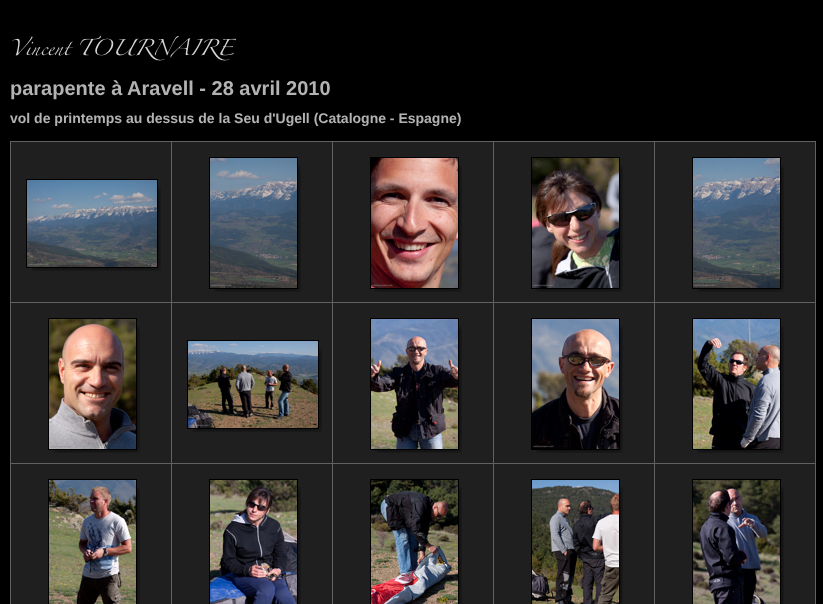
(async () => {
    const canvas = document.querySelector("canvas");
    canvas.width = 823;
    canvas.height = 604;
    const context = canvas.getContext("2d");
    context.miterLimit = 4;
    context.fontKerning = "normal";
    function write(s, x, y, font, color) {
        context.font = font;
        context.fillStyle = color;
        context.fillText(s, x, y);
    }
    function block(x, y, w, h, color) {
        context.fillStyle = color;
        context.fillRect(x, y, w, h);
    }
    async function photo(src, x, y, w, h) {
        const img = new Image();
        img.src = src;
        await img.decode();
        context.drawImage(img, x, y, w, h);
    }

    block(0, 0, 823, 604, "rgb(0, 0, 0)");
    await photo("media/1.png", 12, 35, 224, 26);
    write("parapente à Aravell - 28 avril 2010", 10, 95, "bold 20px Liberation Sans", "rgb(179, 179, 179)");
    write("vol de printemps au dessus de la Seu d'Ugell (Catalogne - Espagne)", 10, 123, "bold 14px Liberation Sans", "rgb(179, 179, 179)");
    block(11, 142, 160, 160, "rgb(31, 31, 31)");
    block(10, 141, 806, 1, "rgb(97, 97, 97)");
    block(10, 141, 1, 161, "rgb(97, 97, 97)");
    await photo("media/2.png", 36, 192, 125, 79);
    context.strokeStyle = "rgb(0, 0, 0)";
    context.strokeRect(26.5, 179.5, 131, 88);
    await photo("media/3.png", 27, 180, 130, 87);
    await photo("media/4.png", 158, 187, 3, 5);
    await photo("media/5.png", 31, 268, 5, 3);
    block(172, 142, 160, 160, "rgb(31, 31, 31)");
    block(171, 141, 1, 161, "rgb(97, 97, 97)");
    await photo("media/6.png", 219, 170, 82, 122);
    context.strokeRect(209.5, 157.5, 88, 131);
    await photo("media/7.png", 210, 158, 87, 130);
    await photo("media/4.png", 298, 165, 3, 5);
    await photo("media/5.png", 214, 289, 5, 3);
    block(333, 142, 160, 160, "rgb(31, 31, 31)");
    block(332, 141, 1, 161, "rgb(97, 97, 97)");
    await photo("media/6.png", 380, 170, 82, 122);
    context.strokeRect(370.5, 157.5, 88, 131);
    await photo("media/8.png", 371, 158, 87, 130);
    await photo("media/4.png", 459, 165, 3, 5);
    await photo("media/5.png", 375, 289, 5, 3);
    block(494, 142, 160, 160, "rgb(31, 31, 31)");
    block(493, 141, 1, 161, "rgb(97, 97, 97)");
    await photo("media/6.png", 541, 170, 82, 122);
    context.strokeRect(531.5, 157.5, 88, 131);
    await photo("media/9.png", 532, 158, 87, 130);
    await photo("media/4.png", 620, 165, 3, 5);
    await photo("media/5.png", 536, 289, 5, 3);
    block(655, 142, 160, 160, "rgb(31, 31, 31)");
    block(815, 141, 1, 161, "rgb(97, 97, 97)");
    block(654, 141, 1, 161, "rgb(97, 97, 97)");
    await photo("media/6.png", 702, 170, 82, 122);
    context.strokeRect(692.5, 157.5, 88, 131);
    await photo("media/10.png", 693, 158, 87, 130);
    await photo("media/4.png", 781, 165, 3, 5);
    await photo("media/5.png", 697, 289, 5, 3);
    block(11, 303, 160, 160, "rgb(31, 31, 31)");
    block(10, 302, 806, 1, "rgb(97, 97, 97)");
    block(10, 302, 1, 161, "rgb(97, 97, 97)");
    await photo("media/6.png", 58, 331, 82, 122);
    context.strokeRect(48.5, 318.5, 88, 131);
    await photo("media/11.png", 49, 319, 87, 130);
    await photo("media/4.png", 137, 326, 3, 5);
    await photo("media/5.png", 53, 450, 5, 3);
    block(172, 303, 160, 160, "rgb(31, 31, 31)");
    block(171, 302, 1, 161, "rgb(97, 97, 97)");
    await photo("media/2.png", 197, 353, 125, 79);
    context.strokeRect(187.5, 340.5, 131, 88);
    await photo("media/12.png", 188, 341, 130, 87);
    await photo("media/4.png", 319, 348, 3, 5);
    await photo("media/5.png", 192, 429, 5, 3);
    block(333, 303, 160, 160, "rgb(31, 31, 31)");
    block(332, 302, 1, 161, "rgb(97, 97, 97)");
    await photo("media/6.png", 380, 331, 82, 122);
    context.strokeRect(370.5, 318.5, 88, 131);
    await photo("media/13.png", 371, 319, 87, 130);
    await photo("media/4.png", 459, 326, 3, 5);
    await photo("media/5.png", 375, 450, 5, 3);
    block(494, 303, 160, 160, "rgb(31, 31, 31)");
    block(493, 302, 1, 161, "rgb(97, 97, 97)");
    await photo("media/6.png", 541, 331, 82, 122);
    context.strokeRect(531.5, 318.5, 88, 131);
    await photo("media/14.png", 532, 319, 87, 130);
    await photo("media/4.png", 620, 326, 3, 5);
    await photo("media/5.png", 536, 450, 5, 3);
    block(655, 303, 160, 160, "rgb(31, 31, 31)");
    block(815, 302, 1, 161, "rgb(97, 97, 97)");
    block(654, 302, 1, 161, "rgb(97, 97, 97)");
    await photo("media/6.png", 702, 331, 82, 122);
    context.strokeRect(692.5, 318.5, 88, 131);
    await photo("media/15.png", 693, 319, 87, 130);
    await photo("media/4.png", 781, 326, 3, 5);
    await photo("media/5.png", 697, 450, 5, 3);
    block(11, 464, 160, 140, "rgb(31, 31, 31)");
    block(10, 463, 806, 1, "rgb(97, 97, 97)");
    block(10, 463, 1, 141, "rgb(97, 97, 97)");
    await photo("media/16.png", 137, 492, 3, 112);
    context.strokeRect(48.5, 479.5, 88, 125);
    await photo("media/17.png", 49, 480, 87, 124);
    await photo("media/4.png", 137, 487, 3, 5);
    block(172, 464, 160, 140, "rgb(31, 31, 31)");
    block(171, 463, 1, 141, "rgb(97, 97, 97)");
    await photo("media/16.png", 298, 492, 3, 112);
    context.strokeRect(209.5, 479.5, 88, 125);
    await photo("media/18.png", 210, 480, 87, 124);
    await photo("media/4.png", 298, 487, 3, 5);
    block(333, 464, 160, 140, "rgb(31, 31, 31)");
    block(332, 463, 1, 141, "rgb(97, 97, 97)");
    await photo("media/16.png", 459, 492, 3, 112);
    context.strokeRect(370.5, 479.5, 88, 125);
    await photo("media/19.png", 371, 480, 87, 124);
    await photo("media/4.png", 459, 487, 3, 5);
    block(494, 464, 160, 140, "rgb(31, 31, 31)");
    block(493, 463, 1, 141, "rgb(97, 97, 97)");
    await photo("media/16.png", 620, 492, 3, 112);
    context.strokeRect(531.5, 479.5, 88, 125);
    await photo("media/20.png", 532, 480, 87, 124);
    await photo("media/4.png", 620, 487, 3, 5);
    block(655, 464, 160, 140, "rgb(31, 31, 31)");
    block(815, 463, 1, 141, "rgb(97, 97, 97)");
    block(654, 463, 1, 141, "rgb(97, 97, 97)");
    await photo("media/16.png", 781, 492, 3, 112);
    context.strokeRect(692.5, 479.5, 88, 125);
    await photo("media/21.png", 693, 480, 87, 124);
    await photo("media/4.png", 781, 487, 3, 5);
})();
